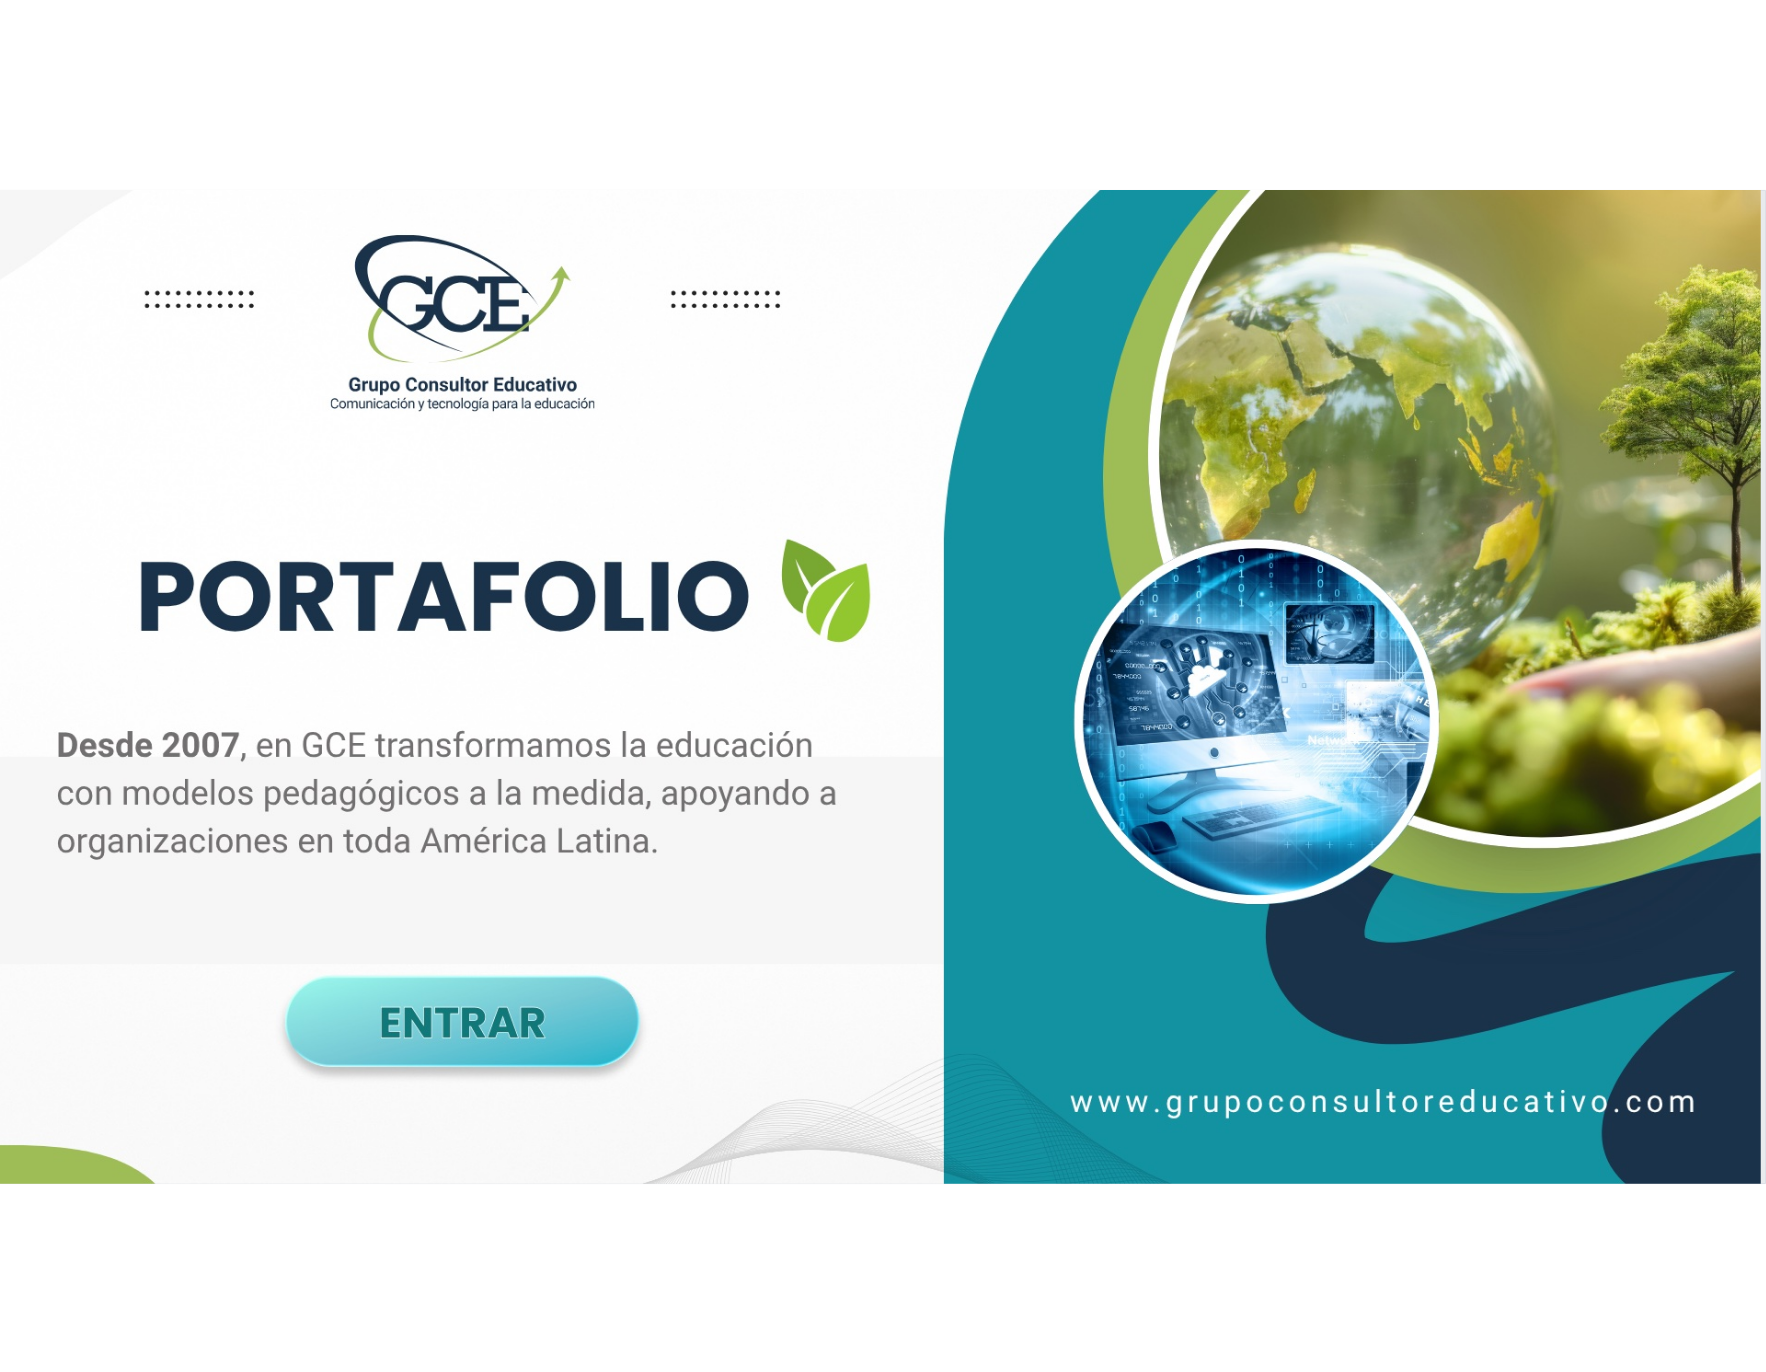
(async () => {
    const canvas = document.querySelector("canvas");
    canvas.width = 1766;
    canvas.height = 1372;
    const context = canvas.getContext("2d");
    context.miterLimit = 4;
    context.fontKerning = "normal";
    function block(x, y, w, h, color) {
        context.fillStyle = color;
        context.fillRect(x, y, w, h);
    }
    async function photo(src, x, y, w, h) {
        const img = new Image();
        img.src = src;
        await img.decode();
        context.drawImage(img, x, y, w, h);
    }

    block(0, 0, 1766, 1372, "rgb(255, 255, 255)");
    context.fillStyle = "rgb(232, 235, 237)";
    context.beginPath();
    context.rect(0.45, 190.45, 1765.1, 993.1);
    context.fill();
    context.strokeStyle = "rgb(216, 221, 228)";
    context.lineWidth = 0.9;
    context.stroke();
    await photo("media/1.png", 0, 190, 1761, 994);
})();
